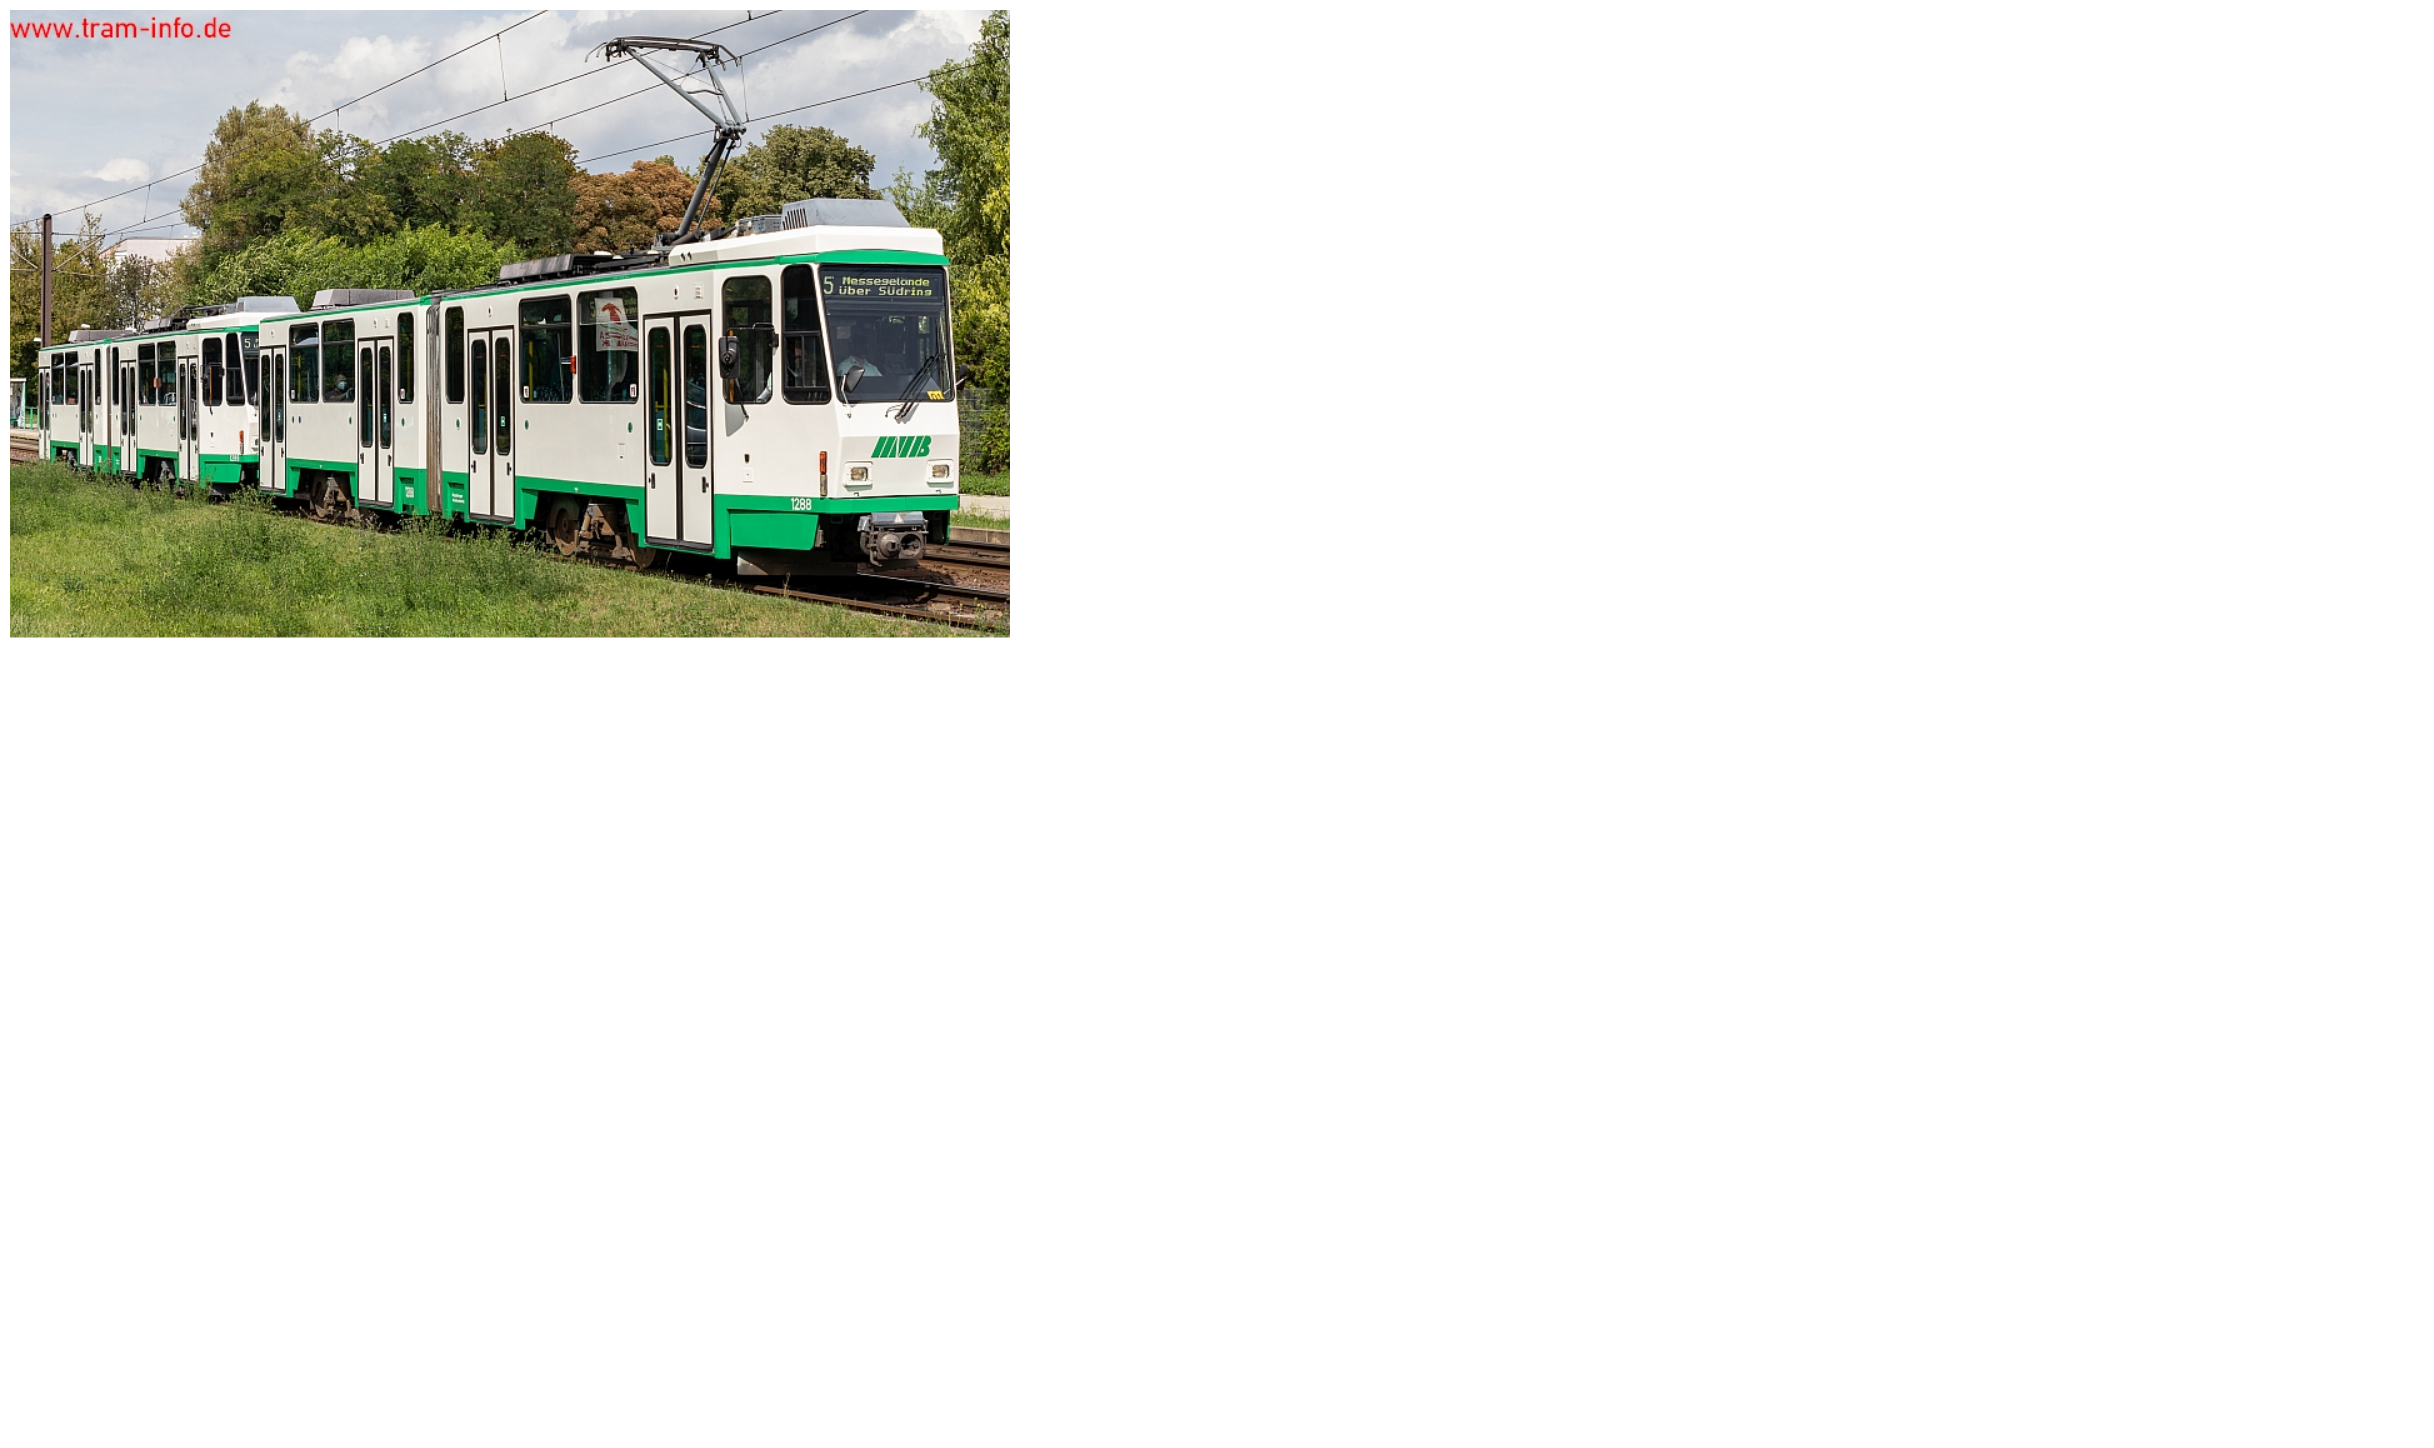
(async () => {
    const canvas = document.querySelector("canvas");
    canvas.width = 2434;
    canvas.height = 1448;
    const context = canvas.getContext("2d");
    context.miterLimit = 4;
    context.fontKerning = "normal";
    function block(x, y, w, h, color) {
        context.fillStyle = color;
        context.fillRect(x, y, w, h);
    }
    async function photo(src, x, y, w, h) {
        const img = new Image();
        img.src = src;
        await img.decode();
        context.drawImage(img, x, y, w, h);
    }

    block(0, 0, 2434, 1448, "rgb(255, 255, 255)");
    await photo("media/1.png", 10, 10, 1000, 628);
})();
